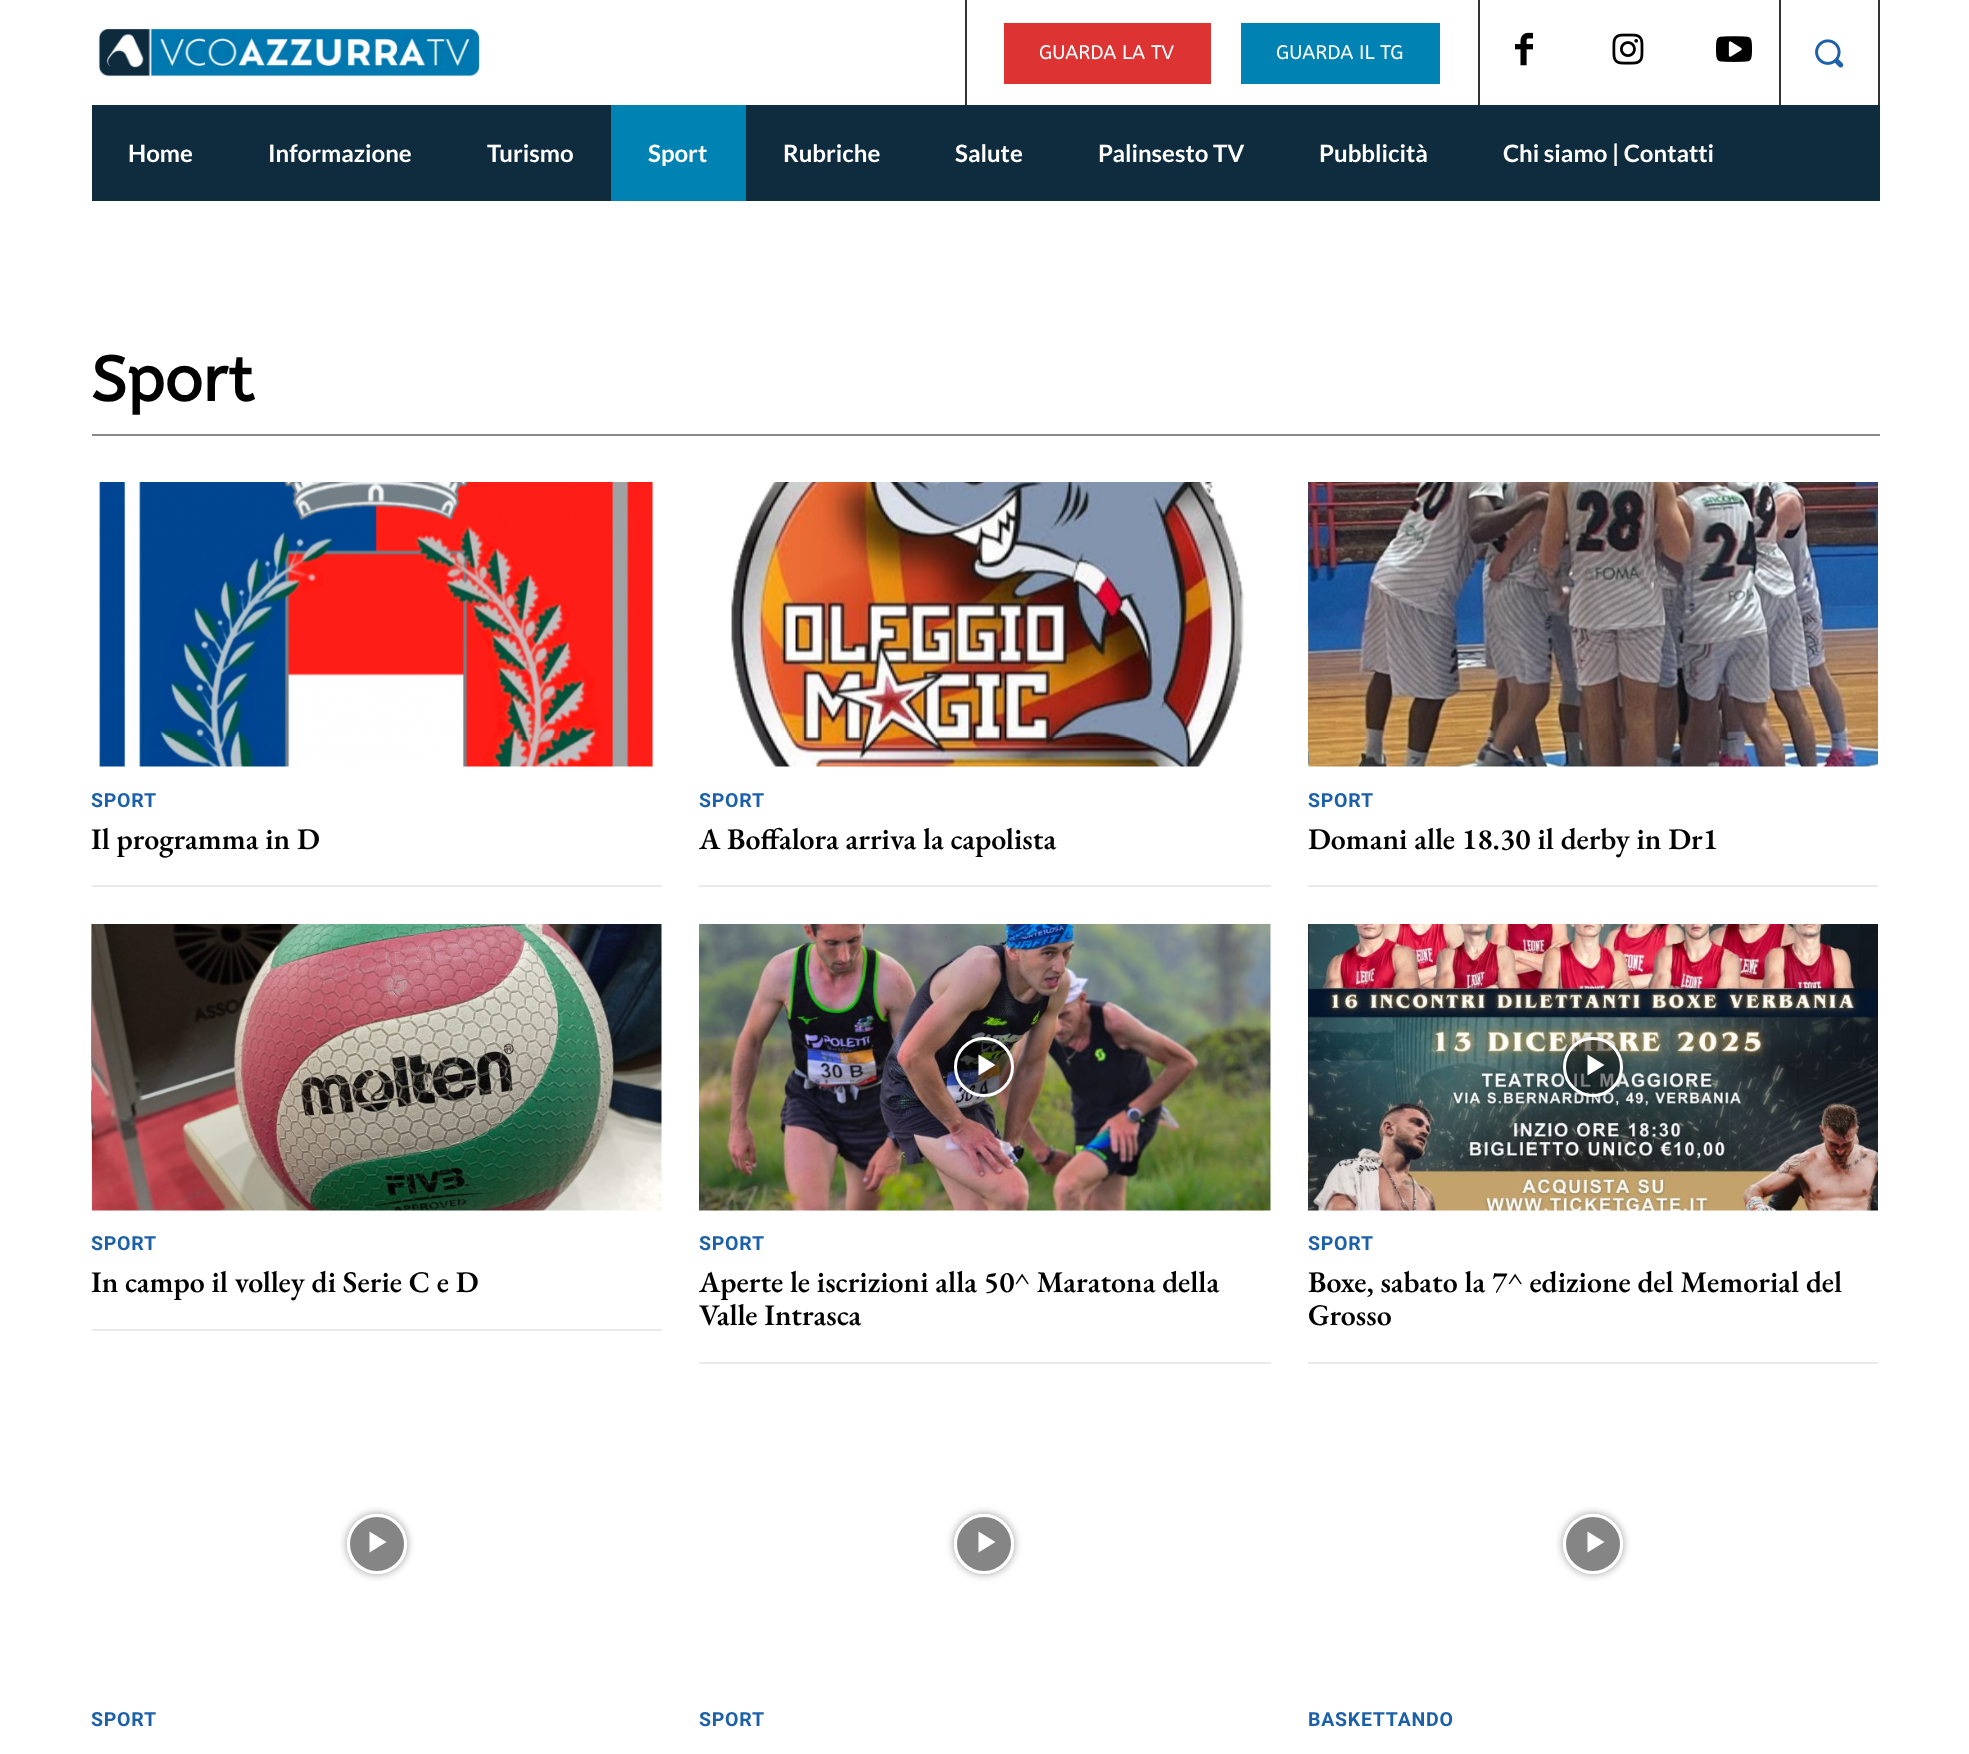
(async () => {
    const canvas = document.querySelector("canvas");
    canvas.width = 1969;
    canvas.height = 1754;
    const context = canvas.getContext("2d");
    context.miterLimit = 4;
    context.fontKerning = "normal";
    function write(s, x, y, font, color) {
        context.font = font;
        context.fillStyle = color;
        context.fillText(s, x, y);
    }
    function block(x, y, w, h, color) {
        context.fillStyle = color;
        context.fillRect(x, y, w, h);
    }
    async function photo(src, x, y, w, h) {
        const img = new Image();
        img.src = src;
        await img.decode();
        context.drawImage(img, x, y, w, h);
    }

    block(0, 0, 1969, 1754, "rgb(255, 255, 255)");
    await photo("media/1.png", 98, 28, 383, 51);
    block(965, 0, 2, 105, "rgb(51, 51, 51)");
    block(1478, 0, 2, 105, "rgb(51, 51, 51)");
    block(1004, 23, 207, 61, "rgb(221, 51, 51)");
    write("GUARDA LA TV", 1039, 59, "19.5px ABeeZee", "rgb(255, 255, 255)");
    block(1241, 23, 199, 61, "rgb(0, 131, 179)");
    write("GUARDA IL TG", 1276, 59, "19.5px ABeeZee", "rgb(255, 255, 255)");
    block(1779, 0, 2, 105, "rgb(51, 51, 51)");
    await photo("media/2.png", 1515, 32, 18, 34);
    await photo("media/3.png", 1612, 33, 32, 32);
    await photo("media/4.png", 1716, 36, 36, 26);
    block(1878, 0, 2, 105, "rgb(51, 51, 51)");
    await photo("media/5.png", 1815, 39, 29, 29);
    block(92, 105, 1788, 96, "rgb(15, 43, 62)");
    write("Home", 128, 162, "bold 24px Lato", "rgb(255, 255, 255)");
    write("Informazione", 268, 162, "bold 24px Lato", "rgb(255, 255, 255)");
    write("Turismo", 487, 162, "bold 24px Lato", "rgb(255, 255, 255)");
    block(611, 105, 135, 96, "rgb(0, 131, 179)");
    write("Sport", 648, 162, "bold 24px Lato", "rgb(255, 255, 255)");
    write("Rubriche", 783, 162, "bold 24px Lato", "rgb(255, 255, 255)");
    write("Salute", 955, 162, "bold 24px Lato", "rgb(255, 255, 255)");
    write("Palinsesto TV", 1098, 162, "bold 24px Lato", "rgb(255, 255, 255)");
    write("Pubblicità", 1319, 162, "bold 24px Lato", "rgb(255, 255, 255)");
    write("Chi siamo | Contatti", 1503, 162, "bold 24px Lato", "rgb(255, 255, 255)");
    block(92, 434, 1788, 2, "rgb(136, 136, 136)");
    write("Sport", 91, 401, "bold 63px ABeeZee", "rgb(0, 0, 0)");
    block(92, 885, 570, 2, "rgb(234, 234, 234)");
    await photo("media/6.png", 99, 482, 555, 285);
    context.letterSpacing = "0.75px";
    write("SPORT", 91, 807, "bold 19.5px Roboto", "rgb(28, 96, 169)");
    context.letterSpacing = "0px";
    write("Il programma in D", 91, 849, "600 30px EB Garamond", "rgb(0, 0, 0)");
    block(699, 885, 572, 2, "rgb(234, 234, 234)");
    await photo("media/7.png", 731, 482, 513, 285);
    context.letterSpacing = "0.75px";
    write("SPORT", 699, 807, "bold 19.5px Roboto", "rgb(28, 96, 169)");
    context.letterSpacing = "0px";
    write("A Boffalora arriva la capolista", 699, 849, "600 30px EB Garamond", "rgb(0, 0, 0)");
    block(1308, 885, 570, 2, "rgb(234, 234, 234)");
    await photo("media/8.png", 1308, 482, 570, 285);
    context.letterSpacing = "0.75px";
    write("SPORT", 1308, 807, "bold 19.5px Roboto", "rgb(28, 96, 169)");
    context.letterSpacing = "0px";
    write("Domani alle 18.30 il derby in Dr1", 1308, 849, "600 30px EB Garamond", "rgb(0, 0, 0)");
    block(92, 1329, 570, 2, "rgb(234, 234, 234)");
    await photo("media/9.png", 91, 924, 571, 287);
    context.letterSpacing = "0.75px";
    write("SPORT", 91, 1250, "bold 19.5px Roboto", "rgb(28, 96, 169)");
    context.letterSpacing = "0px";
    write("In campo il volley di Serie C e D", 91, 1292, "600 30px EB Garamond", "rgb(0, 0, 0)");
    block(699, 1362, 572, 2, "rgb(234, 234, 234)");
    await photo("media/10.png", 699, 924, 572, 287);
    context.save();
    context.beginPath();
    context.moveTo(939, 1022);
    context.lineTo(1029, 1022);
    context.lineTo(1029, 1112);
    context.lineTo(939, 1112);
    context.closePath();
    context.moveTo(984, 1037);
    context.bezierCurveTo(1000.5, 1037, 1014, 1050.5, 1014, 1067);
    context.bezierCurveTo(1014, 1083.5, 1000.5, 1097, 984, 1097);
    context.bezierCurveTo(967.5, 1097, 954, 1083.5, 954, 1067);
    context.bezierCurveTo(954, 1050.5, 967.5, 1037, 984, 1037);
    context.closePath();
    context.clip("evenodd");
    context.fillStyle = "rgba(0, 0, 0, 0.4)";
    context.filter = "blur(4.5px)";
    context.beginPath();
    context.roundRect(954, 1037, 60, 60, 30);
    context.fill();
    context.filter = "none";
    context.restore();
    context.fillStyle = "rgba(0, 0, 0, 0.48)";
    context.beginPath();
    context.arc(984, 1067, 28.5, 0, Math.PI * 2);
    context.fill();
    context.strokeStyle = "rgb(255, 255, 255)";
    context.lineWidth = 3;
    context.stroke();
    context.fillStyle = "rgb(255, 255, 255)";
    context.beginPath();
    context.moveTo(978.5, 1054.5);
    context.lineTo(978.5, 1075.5);
    context.lineTo(995.5, 1065);
    context.closePath();
    context.fill();
    context.letterSpacing = "0.75px";
    write("SPORT", 699, 1250, "bold 19.5px Roboto", "rgb(28, 96, 169)");
    context.letterSpacing = "0px";
    write("Aperte le iscrizioni alla 50^ Maratona della", 699, 1292, "600 30px EB Garamond", "rgb(0, 0, 0)");
    write("Valle Intrasca", 699, 1325, "600 30px EB Garamond", "rgb(0, 0, 0)");
    block(1308, 1362, 570, 2, "rgb(234, 234, 234)");
    await photo("media/11.png", 1308, 924, 570, 287);
    context.save();
    context.beginPath();
    context.moveTo(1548, 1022);
    context.lineTo(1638, 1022);
    context.lineTo(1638, 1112);
    context.lineTo(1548, 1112);
    context.closePath();
    context.moveTo(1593, 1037);
    context.bezierCurveTo(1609.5, 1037, 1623, 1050.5, 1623, 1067);
    context.bezierCurveTo(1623, 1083.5, 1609.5, 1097, 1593, 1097);
    context.bezierCurveTo(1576.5, 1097, 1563, 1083.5, 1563, 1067);
    context.bezierCurveTo(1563, 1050.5, 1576.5, 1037, 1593, 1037);
    context.closePath();
    context.clip("evenodd");
    context.fillStyle = "rgba(0, 0, 0, 0.4)";
    context.filter = "blur(4.5px)";
    context.beginPath();
    context.roundRect(1563, 1037, 60, 60, 30);
    context.fill();
    context.filter = "none";
    context.restore();
    context.fillStyle = "rgba(0, 0, 0, 0.48)";
    context.beginPath();
    context.arc(1593, 1067, 28.5, 0, Math.PI * 2);
    context.fill();
    context.stroke();
    context.fillStyle = "rgb(255, 255, 255)";
    context.beginPath();
    context.moveTo(1587.5, 1054.5);
    context.lineTo(1587.5, 1075.5);
    context.lineTo(1604.5, 1065);
    context.closePath();
    context.fill();
    context.letterSpacing = "0.75px";
    write("SPORT", 1308, 1250, "bold 19.5px Roboto", "rgb(28, 96, 169)");
    context.letterSpacing = "0px";
    write("Boxe, sabato la 7^ edizione del Memorial del", 1308, 1292, "600 30px EB Garamond", "rgb(0, 0, 0)");
    write("Grosso", 1308, 1325, "600 30px EB Garamond", "rgb(0, 0, 0)");
    context.save();
    context.beginPath();
    context.moveTo(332, 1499);
    context.lineTo(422, 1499);
    context.lineTo(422, 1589);
    context.lineTo(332, 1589);
    context.closePath();
    context.moveTo(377, 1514);
    context.bezierCurveTo(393.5, 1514, 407, 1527.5, 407, 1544);
    context.bezierCurveTo(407, 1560.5, 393.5, 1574, 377, 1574);
    context.bezierCurveTo(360.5, 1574, 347, 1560.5, 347, 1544);
    context.bezierCurveTo(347, 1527.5, 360.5, 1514, 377, 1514);
    context.closePath();
    context.clip("evenodd");
    context.fillStyle = "rgba(0, 0, 0, 0.4)";
    context.filter = "blur(4.5px)";
    context.beginPath();
    context.roundRect(347, 1514, 60, 60, 30);
    context.fill();
    context.filter = "none";
    context.restore();
    context.fillStyle = "rgba(0, 0, 0, 0.48)";
    context.beginPath();
    context.arc(377, 1544, 28.5, 0, Math.PI * 2);
    context.fill();
    context.stroke();
    context.fillStyle = "rgb(255, 255, 255)";
    context.beginPath();
    context.moveTo(369.5, 1531.5);
    context.lineTo(369.5, 1552.5);
    context.lineTo(386.5, 1542);
    context.closePath();
    context.fill();
    context.letterSpacing = "0.75px";
    write("SPORT", 91, 1726, "bold 19.5px Roboto", "rgb(28, 96, 169)");
    context.save();
    context.beginPath();
    context.moveTo(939, 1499);
    context.lineTo(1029, 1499);
    context.lineTo(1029, 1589);
    context.lineTo(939, 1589);
    context.closePath();
    context.moveTo(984, 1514);
    context.bezierCurveTo(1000.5, 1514, 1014, 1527.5, 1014, 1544);
    context.bezierCurveTo(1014, 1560.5, 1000.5, 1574, 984, 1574);
    context.bezierCurveTo(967.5, 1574, 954, 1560.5, 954, 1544);
    context.bezierCurveTo(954, 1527.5, 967.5, 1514, 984, 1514);
    context.closePath();
    context.clip("evenodd");
    context.fillStyle = "rgba(0, 0, 0, 0.4)";
    context.filter = "blur(4.5px)";
    context.beginPath();
    context.roundRect(954, 1514, 60, 60, 30);
    context.fill();
    context.filter = "none";
    context.restore();
    context.fillStyle = "rgba(0, 0, 0, 0.48)";
    context.beginPath();
    context.arc(984, 1544, 28.5, 0, Math.PI * 2);
    context.fill();
    context.stroke();
    context.fillStyle = "rgb(255, 255, 255)";
    context.beginPath();
    context.moveTo(978.5, 1531.5);
    context.lineTo(978.5, 1552.5);
    context.lineTo(995.5, 1542);
    context.closePath();
    context.fill();
    write("SPORT", 699, 1726, "bold 19.5px Roboto", "rgb(28, 96, 169)");
    context.save();
    context.beginPath();
    context.moveTo(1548, 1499);
    context.lineTo(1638, 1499);
    context.lineTo(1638, 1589);
    context.lineTo(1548, 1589);
    context.closePath();
    context.moveTo(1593, 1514);
    context.bezierCurveTo(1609.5, 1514, 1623, 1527.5, 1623, 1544);
    context.bezierCurveTo(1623, 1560.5, 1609.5, 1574, 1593, 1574);
    context.bezierCurveTo(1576.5, 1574, 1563, 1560.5, 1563, 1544);
    context.bezierCurveTo(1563, 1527.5, 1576.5, 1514, 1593, 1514);
    context.closePath();
    context.clip("evenodd");
    context.fillStyle = "rgba(0, 0, 0, 0.4)";
    context.filter = "blur(4.5px)";
    context.beginPath();
    context.roundRect(1563, 1514, 60, 60, 30);
    context.fill();
    context.filter = "none";
    context.restore();
    context.fillStyle = "rgba(0, 0, 0, 0.48)";
    context.beginPath();
    context.arc(1593, 1544, 28.5, 0, Math.PI * 2);
    context.fill();
    context.stroke();
    context.fillStyle = "rgb(255, 255, 255)";
    context.beginPath();
    context.moveTo(1587.5, 1531.5);
    context.lineTo(1587.5, 1552.5);
    context.lineTo(1604.5, 1542);
    context.closePath();
    context.fill();
    write("BASKETTANDO", 1308, 1726, "bold 19.5px Roboto", "rgb(28, 96, 169)");
})();
